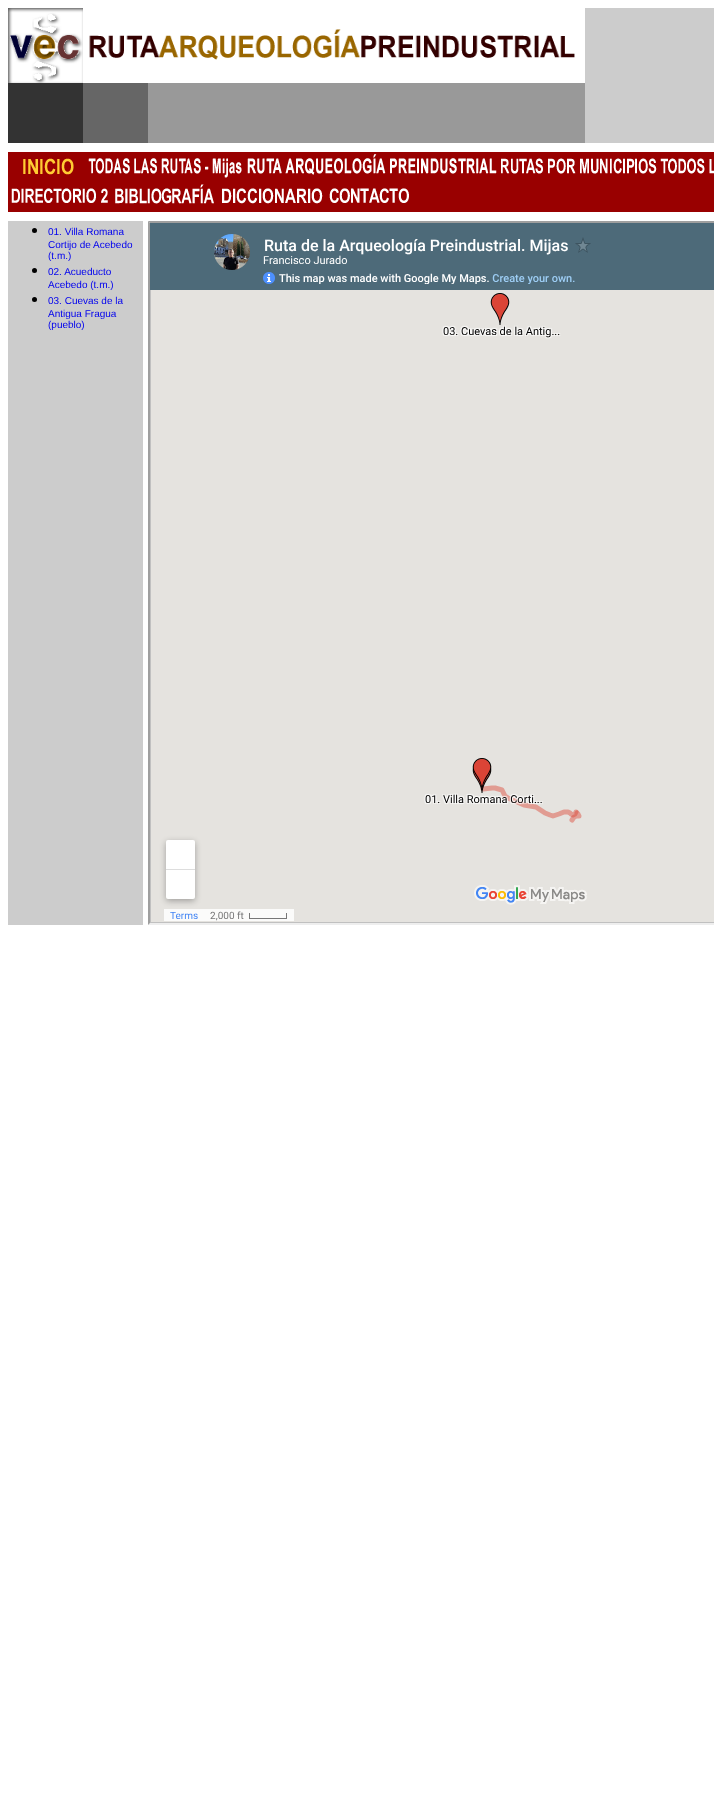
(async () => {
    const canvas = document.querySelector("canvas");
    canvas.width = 714;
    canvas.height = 1795;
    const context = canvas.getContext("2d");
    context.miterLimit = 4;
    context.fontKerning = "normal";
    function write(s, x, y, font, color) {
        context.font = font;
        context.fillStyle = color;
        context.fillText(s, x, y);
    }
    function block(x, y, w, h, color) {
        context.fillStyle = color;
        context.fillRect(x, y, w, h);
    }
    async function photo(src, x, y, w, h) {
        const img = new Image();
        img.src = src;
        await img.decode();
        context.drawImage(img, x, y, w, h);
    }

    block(0, 0, 714, 1795, "rgb(255, 255, 255)");
    await photo("media/1.png", 8, 8, 75, 75);
    await photo("media/2.png", 89, 29, 486, 31);
    block(585, 8, 129, 135, "rgb(204, 204, 204)");
    block(8, 83, 75, 60, "rgb(51, 51, 51)");
    block(83, 83, 65, 60, "rgb(102, 102, 102)");
    block(148, 83, 437, 60, "rgb(153, 153, 153)");
    block(8, 152, 706, 60, "rgb(153, 0, 0)");
    await photo("media/3.png", 23, 158, 51, 17);
    await photo("media/4.png", 88, 158, 154, 20);
    await photo("media/5.png", 247, 154, 250, 21);
    await photo("media/6.png", 501, 158, 156, 16);
    await photo("media/7.png", 660, 158, 54, 16);
    await photo("media/8.png", 11, 188, 97, 15);
    await photo("media/9.png", 115, 184, 99, 20);
    await photo("media/10.png", 222, 188, 101, 16);
    await photo("media/11.png", 329, 188, 80, 15);
    block(8, 221, 135, 704, "rgb(204, 204, 204)");
    context.fillStyle = "rgb(0, 0, 0)";
    context.beginPath();
    context.arc(34.5, 230.5, 2.5, 0, Math.PI * 2);
    context.fill();
    write("01. Villa Romana", 48, 235, "10px Liberation Sans", "rgb(0, 0, 238)");
    write("Cortijo de Acebedo", 48, 248, "10px Liberation Sans", "rgb(0, 0, 238)");
    write("(t.m.)", 48, 259, "10px Liberation Sans", "rgb(0, 0, 238)");
    context.fillStyle = "rgb(0, 0, 0)";
    context.beginPath();
    context.arc(34.5, 270.5, 2.5, 0, Math.PI * 2);
    context.fill();
    write("02. Acueducto", 48, 275, "10px Liberation Sans", "rgb(0, 0, 238)");
    write("Acebedo (t.m.)", 48, 288, "10px Liberation Sans", "rgb(0, 0, 238)");
    context.fillStyle = "rgb(0, 0, 0)";
    context.beginPath();
    context.arc(34.5, 299.5, 2.5, 0, Math.PI * 2);
    context.fill();
    write("03. Cuevas de la", 48, 304, "10px Liberation Sans", "rgb(0, 0, 238)");
    write("Antigua Fragua", 48, 317, "10px Liberation Sans", "rgb(0, 0, 238)");
    write("(pueblo)", 48, 328, "10px Liberation Sans", "rgb(0, 0, 238)");
    context.fillStyle = "rgb(159, 159, 159)";
    context.beginPath();
    context.moveTo(148, 221);
    context.lineTo(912, 221);
    context.lineTo(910, 223);
    context.lineTo(150, 223);
    context.closePath();
    context.fill();
    context.fillStyle = "rgb(238, 238, 238)";
    context.beginPath();
    context.moveTo(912, 925);
    context.lineTo(148, 925);
    context.lineTo(150, 923);
    context.lineTo(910, 923);
    context.closePath();
    context.fill();
    context.fillStyle = "rgb(159, 159, 159)";
    context.beginPath();
    context.moveTo(148, 925);
    context.lineTo(148, 221);
    context.lineTo(150, 223);
    context.lineTo(150, 923);
    context.closePath();
    context.fill();
    await photo("media/12.png", 150, 223, 564, 700);
})();
